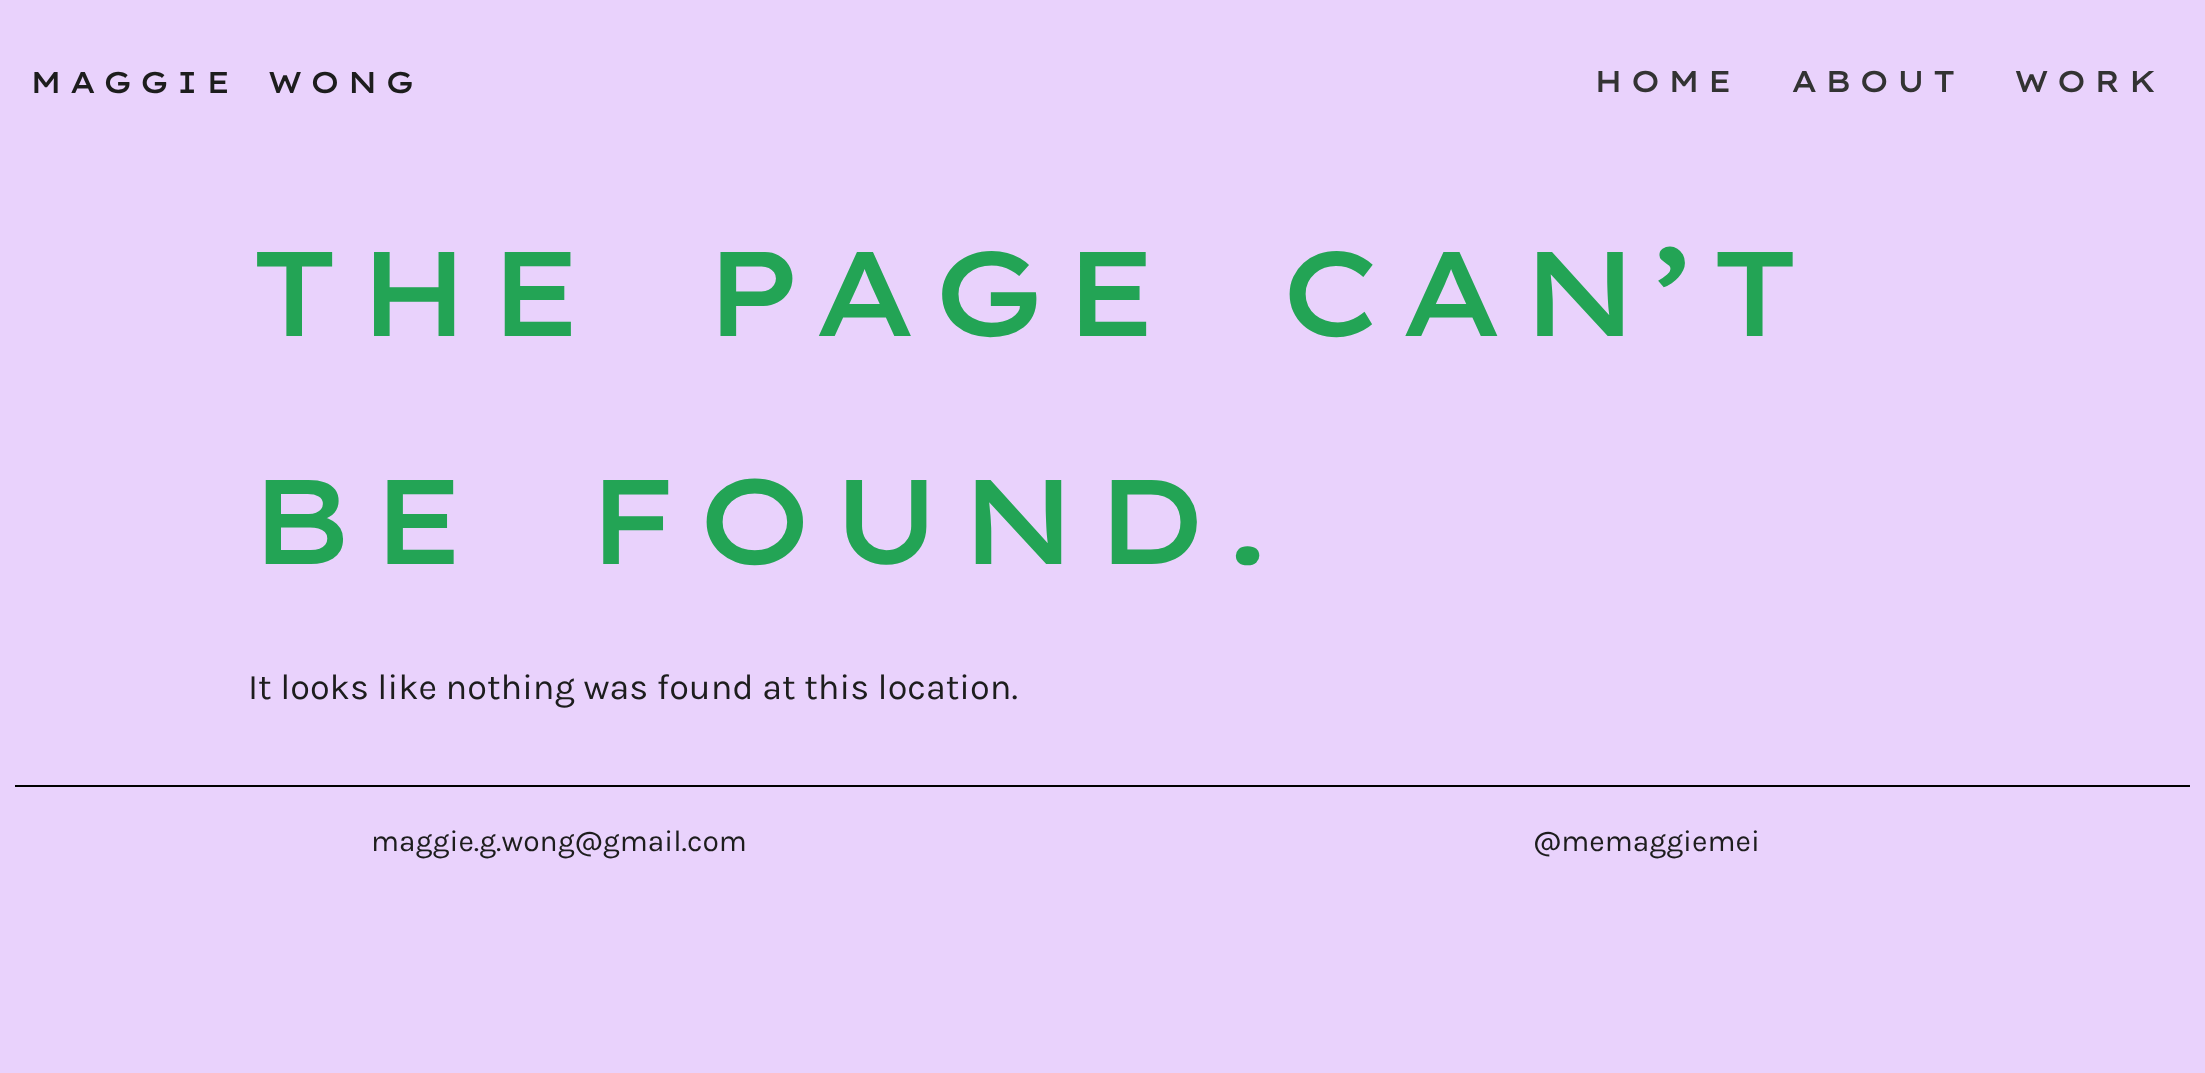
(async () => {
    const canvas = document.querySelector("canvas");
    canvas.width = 2205;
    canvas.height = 1073;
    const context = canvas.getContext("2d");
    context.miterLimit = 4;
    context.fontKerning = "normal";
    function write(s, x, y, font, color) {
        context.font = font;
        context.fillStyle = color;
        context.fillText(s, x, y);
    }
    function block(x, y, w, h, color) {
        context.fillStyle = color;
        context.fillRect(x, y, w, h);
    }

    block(0, 0, 2205, 1073, "rgb(233, 210, 252)");
    context.letterSpacing = "7.5px";
    context.wordSpacing = "9px";
    write("MAGGIE WONG", 30, 93, "500 30px Lexend Mega", "rgb(29, 29, 29)");
    context.wordSpacing = "0px";
    write("HOME", 1594, 92, "500 30px Lexend Mega", "rgb(51, 51, 51)");
    write("ABOUT", 1791, 92, "500 30px Lexend Mega", "rgb(51, 51, 51)");
    write("WORK", 2014, 92, "500 30px Lexend Mega", "rgb(51, 51, 51)");
    context.letterSpacing = "15px";
    context.wordSpacing = "36px";
    write("THE PAGE CAN’T", 248, 336, "500 120px Lexend Mega", "rgb(35, 164, 85)");
    write("BE FOUND.", 248, 564, "500 120px Lexend Mega", "rgb(35, 164, 85)");
    context.letterSpacing = "0px";
    context.wordSpacing = "0px";
    write("It looks like nothing was found at this location.", 248, 699, "36px Karla", "rgb(29, 29, 29)");
    block(15, 785, 2175, 2, "rgb(0, 0, 0)");
    write("maggie.g.wong@gmail.com", 371, 851, "30px Karla", "rgb(29, 29, 29)");
    write("@memaggiemei", 1533, 851, "30px Karla", "rgb(29, 29, 29)");
})();
